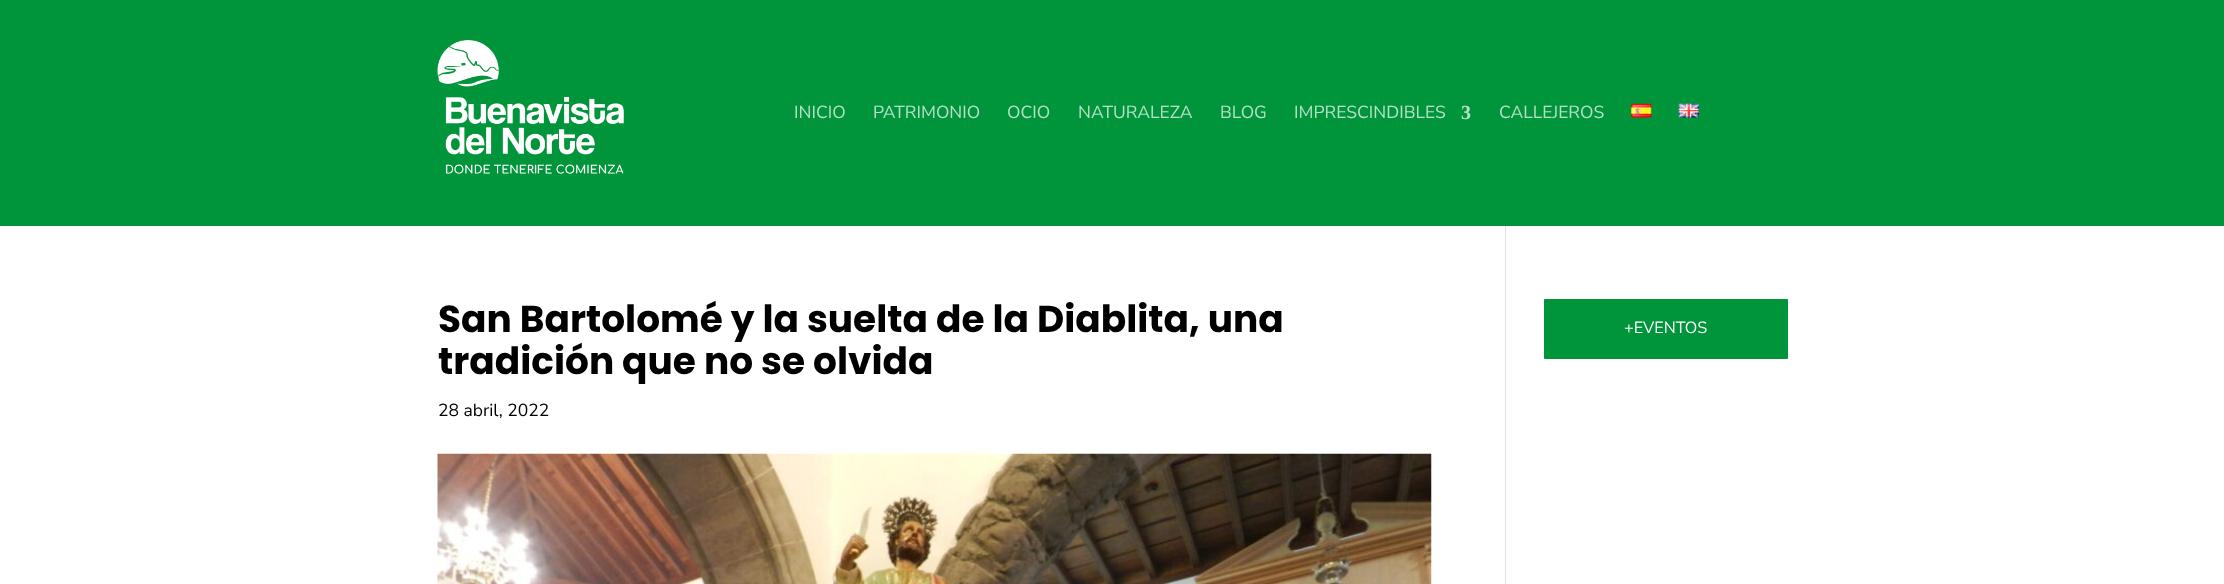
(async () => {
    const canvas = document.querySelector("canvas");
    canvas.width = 2224;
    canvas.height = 584;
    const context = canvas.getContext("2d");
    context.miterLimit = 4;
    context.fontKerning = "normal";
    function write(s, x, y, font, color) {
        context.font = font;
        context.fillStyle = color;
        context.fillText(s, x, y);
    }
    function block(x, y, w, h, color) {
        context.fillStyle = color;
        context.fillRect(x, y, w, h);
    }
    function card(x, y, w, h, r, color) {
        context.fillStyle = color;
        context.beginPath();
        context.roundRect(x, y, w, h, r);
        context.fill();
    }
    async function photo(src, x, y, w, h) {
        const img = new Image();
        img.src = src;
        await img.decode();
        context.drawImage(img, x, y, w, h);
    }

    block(0, 0, 2224, 584, "rgb(255, 255, 255)");
    block(0, 0, 2224, 226, "rgb(0, 149, 59)");
    await photo("media/1.png", 437, 40, 187, 134);
    write("INICIO", 794, 118, "17.5px Nunito Sans", "rgb(181, 224, 198)");
    write("PATRIMONIO", 873, 118, "17.5px Nunito Sans", "rgb(181, 224, 198)");
    write("OCIO", 1007, 118, "17.5px Nunito Sans", "rgb(181, 224, 198)");
    write("NATURALEZA", 1078, 118, "17.5px Nunito Sans", "rgb(181, 224, 198)");
    write("BLOG", 1220, 118, "17.5px Nunito Sans", "rgb(181, 224, 198)");
    write("IMPRESCINDIBLES", 1294, 118, "17.5px Nunito Sans", "rgb(181, 224, 198)");
    write("3", 1461, 119, "bold 20px Liberation Serif", "rgb(181, 224, 198)");
    write("CALLEJEROS", 1499, 118, "17.5px Nunito Sans", "rgb(181, 224, 198)");
    await photo("media/2.png", 1631, 103, 21, 15);
    await photo("media/3.png", 1678, 103, 21, 15);
    block(1505, 226, 1, 358, "rgb(226, 226, 226)");
    write("San Bartolomé y la suelta de la Diablita, una", 438, 332, "bold 37.5px Poppins", "rgb(0, 0, 0)");
    write("tradición que no se olvida", 438, 374, "bold 37.5px Poppins", "rgb(0, 0, 0)");
    write("28 abril, 2022", 438, 416, "17.5px Nunito Sans", "rgb(0, 0, 0)");
    await photo("media/4.png", 437, 453, 995, 131);
    card(1544, 299, 244, 60, 1, "rgb(0, 149, 59)");
    write("+EVENTOS", 1624, 333, "16.25px Nunito Sans", "rgb(255, 255, 255)");
})();
